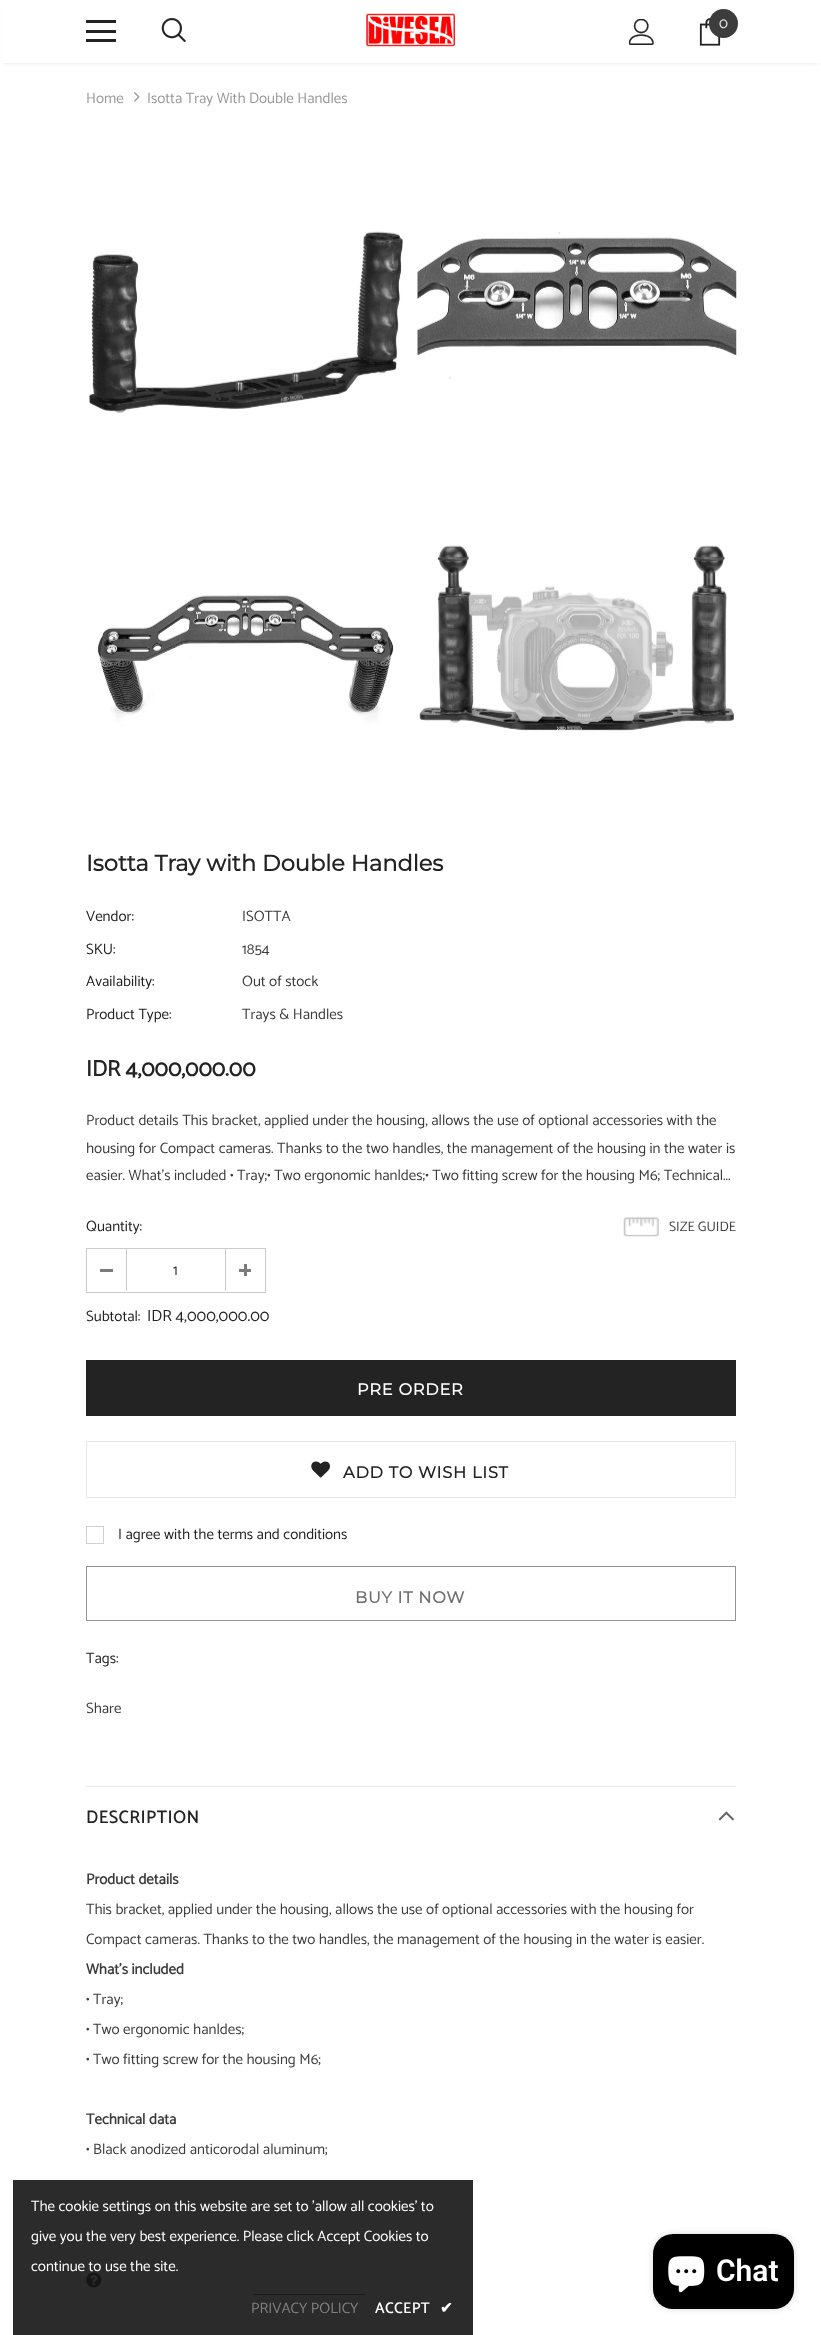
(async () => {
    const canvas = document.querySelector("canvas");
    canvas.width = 821;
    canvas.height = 2335;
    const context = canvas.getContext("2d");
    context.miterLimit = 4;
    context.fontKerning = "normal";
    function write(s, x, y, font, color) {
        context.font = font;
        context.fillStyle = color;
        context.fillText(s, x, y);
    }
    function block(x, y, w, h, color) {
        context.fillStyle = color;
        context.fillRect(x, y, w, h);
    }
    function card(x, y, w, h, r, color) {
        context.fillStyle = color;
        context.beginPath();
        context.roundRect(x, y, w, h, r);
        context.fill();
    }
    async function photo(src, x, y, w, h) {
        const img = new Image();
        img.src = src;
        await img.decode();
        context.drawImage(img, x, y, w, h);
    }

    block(0, 0, 821, 2335, "rgb(255, 255, 255)");
    context.fillStyle = "rgba(0, 0, 0, 0.12)";
    context.filter = "blur(2px)";
    context.beginPath();
    context.rect(4, 8, 814, 55);
    context.fill();
    context.filter = "none";
    block(1, 5, 820, 58, "rgb(255, 255, 255)");
    block(86, 20, 30, 3, "rgb(35, 35, 35)");
    block(86, 30, 30, 3, "rgb(35, 35, 35)");
    block(86, 39, 30, 3, "rgb(35, 35, 35)");
    await photo("media/1.png", 161, 18, 25, 24);
    await photo("media/2.png", 366, 13, 89, 34);
    await photo("media/3.png", 629, 19, 25, 26);
    await photo("media/4.png", 699, 18, 22, 28);
    context.fillStyle = "rgb(60, 60, 60)";
    context.beginPath();
    context.arc(723.5, 23.5, 14.5, 0, Math.PI * 2);
    context.fill();
    write("0", 719, 28, "15px Catamaran", "rgb(235, 235, 235)");
    write("Home", 86, 103, "15px Catamaran", "rgb(153, 153, 153)");
    await photo("media/5.png", 134, 92, 6, 10);
    write("Isotta Tray With Double Handles", 147, 103, "15px Catamaran", "rgb(153, 153, 153)");
    await photo("media/6.png", 89, 231, 314, 182);
    await photo("media/7.png", 97, 593, 297, 145);
    await photo("media/8.png", 417, 231, 320, 148);
    await photo("media/9.png", 419, 545, 315, 186);
    write("Isotta Tray with Double Handles", 86, 871, "bold 22.5px Montserrat", "rgb(35, 35, 35)");
    write("Vendor:", 86, 921, "15px Catamaran", "rgb(35, 35, 35)");
    write("ISOTTA", 242, 921, "15px Catamaran", "rgb(60, 60, 60)");
    write("SKU:", 86, 954, "15px Catamaran", "rgb(35, 35, 35)");
    write("1854", 242, 954, "15px Catamaran", "rgb(60, 60, 60)");
    write("Availability:", 86, 986, "15px Catamaran", "rgb(35, 35, 35)");
    write("Out of stock", 242, 986, "15px Catamaran", "rgb(60, 60, 60)");
    write("Product Type:", 86, 1019, "15px Catamaran", "rgb(35, 35, 35)");
    write("Trays & Handles", 242, 1019, "15px Catamaran", "rgb(60, 60, 60)");
    write("IDR 4,000,000.00", 86, 1076, "bold 22.5px Catamaran", "rgb(35, 35, 35)");
    write("Product details This bracket, applied under the housing, allows the use of optional accessories with the", 86, 1125, "15px Catamaran", "rgb(60, 60, 60)");
    write("housing for Compact cameras. Thanks to the two handles, the management of the housing in the water is", 86, 1153, "15px Catamaran", "rgb(60, 60, 60)");
    write("easier. What's included • Tray;• Two ergonomic hanldes;• Two fitting screw for the housing M6; Technical...", 86, 1180, "15px Catamaran", "rgb(60, 60, 60)");
    write("Quantity:", 86, 1231, "15px Catamaran", "rgb(35, 35, 35)");
    context.strokeStyle = "rgb(203, 203, 203)";
    context.strokeRect(86.5, 1248.5, 179, 44);
    block(126, 1249, 1, 42, "rgb(203, 203, 203)");
    block(100, 1269, 13, 3, "rgb(123, 123, 123)");
    write("1", 173, 1275, "15px Catamaran", "rgb(45, 45, 45)");
    block(225, 1249, 1, 42, "rgb(203, 203, 203)");
    block(239, 1269, 12, 3, "rgb(123, 123, 123)");
    block(244, 1264, 3, 12, "rgb(123, 123, 123)");
    await photo("media/10.png", 623, 1217, 36, 20);
    write("SIZE GUIDE", 669, 1231, "13.75px Catamaran", "rgb(60, 60, 60)");
    write("Subtotal:", 86, 1321, "15px Catamaran", "rgb(35, 35, 35)");
    write("IDR 4,000,000.00", 147, 1321, "16.25px Catamaran", "rgb(35, 35, 35)");
    block(86, 1360, 650, 56, "rgb(35, 35, 35)");
    context.letterSpacing = "0.75px";
    write("PRE ORDER", 357, 1395, "bold 16.25px Montserrat", "rgb(255, 255, 255)");
    context.strokeStyle = "rgb(230, 230, 230)";
    context.strokeRect(86.5, 1441.5, 649, 56);
    await photo("media/11.png", 311, 1461, 19, 17);
    write("ADD TO WISH LIST", 343, 1478, "bold 16.25px Montserrat", "rgb(35, 35, 35)");
    context.strokeStyle = "rgb(208, 208, 208)";
    context.strokeRect(86.5, 1526.5, 17, 17);
    context.letterSpacing = "0px";
    write("I agree with the terms and conditions", 118, 1539, "15px Catamaran", "rgb(35, 35, 35)");
    context.strokeStyle = "rgb(148, 148, 148)";
    context.strokeRect(86.5, 1566.5, 649, 54);
    context.letterSpacing = "0.75px";
    write("BUY IT NOW", 355, 1603, "bold 16.25px Montserrat", "rgb(112, 112, 112)");
    context.letterSpacing = "0px";
    write("Tags:", 86, 1663, "15px Catamaran", "rgb(35, 35, 35)");
    write("Share", 86, 1713, "15px Catamaran", "rgb(60, 60, 60)");
    block(86, 1786, 650, 1, "rgb(230, 230, 230)");
    context.letterSpacing = "0.9px";
    write("DESCRIPTION", 86, 1823, "bold 17.5px Catamaran", "rgb(35, 35, 35)");
    await photo("media/12.png", 718, 1811, 16, 10);
    context.letterSpacing = "0px";
    write("Product details", 86, 1884, "bold 15px Catamaran", "rgb(60, 60, 60)");
    write("This bracket, applied under the housing, allows the use of optional accessories with the housing for", 86, 1914, "15px Catamaran", "rgb(60, 60, 60)");
    write("Compact cameras. Thanks to the two handles, the management of the housing in the water is easier.", 86, 1944, "15px Catamaran", "rgb(60, 60, 60)");
    write("What's included", 86, 1974, "bold 15px Catamaran", "rgb(60, 60, 60)");
    write("• Tray;", 86, 2004, "15px Catamaran", "rgb(60, 60, 60)");
    write("• Two ergonomic hanldes;", 86, 2034, "15px Catamaran", "rgb(60, 60, 60)");
    write("• Two fitting screw for the housing M6;", 86, 2064, "15px Catamaran", "rgb(60, 60, 60)");
    write("Technical data", 86, 2124, "bold 15px Catamaran", "rgb(60, 60, 60)");
    write("• Black anodized anticorodal aluminum;", 86, 2154, "15px Catamaran", "rgb(60, 60, 60)");
    await photo("media/13.png", 86, 2272, 16, 16);
    block(253, 2294, 112, 1, "rgb(90, 90, 90)");
    block(13, 2180, 460, 155, "rgba(20, 20, 20, 0.9)");
    write("The cookie settings on this website are set to 'allow all cookies' to", 31, 2211, "15px Catamaran", "rgb(255, 255, 255)");
    write("give you the very best experience. Please click Accept Cookies to", 31, 2241, "15px Catamaran", "rgb(255, 255, 255)");
    write("continue to use the site.", 31, 2271, "15px Catamaran", "rgb(255, 255, 255)");
    write("PRIVACY POLICY", 251, 2313, "15px Catamaran", "rgb(129, 129, 129)");
    context.letterSpacing = "0.75px";
    write("ACCEPT", 375, 2313, "bold 15px Catamaran", "rgb(255, 255, 255)");
    write("✔", 440, 2313, "bold 15px DejaVu Sans", "rgb(255, 255, 255)");
    context.fillStyle = "rgba(0, 0, 0, 0.15)";
    context.filter = "blur(3px)";
    context.beginPath();
    context.roundRect(653, 2234, 141, 75, 20);
    context.fill();
    context.filter = "none";
    card(653, 2234, 141, 75, 20, "rgb(0, 0, 0)");
    await photo("media/14.png", 668, 2256, 37, 37);
    context.letterSpacing = "0px";
    write("Chat", 716, 2281, "600 30px Roboto", "rgb(255, 255, 255)");
})();
